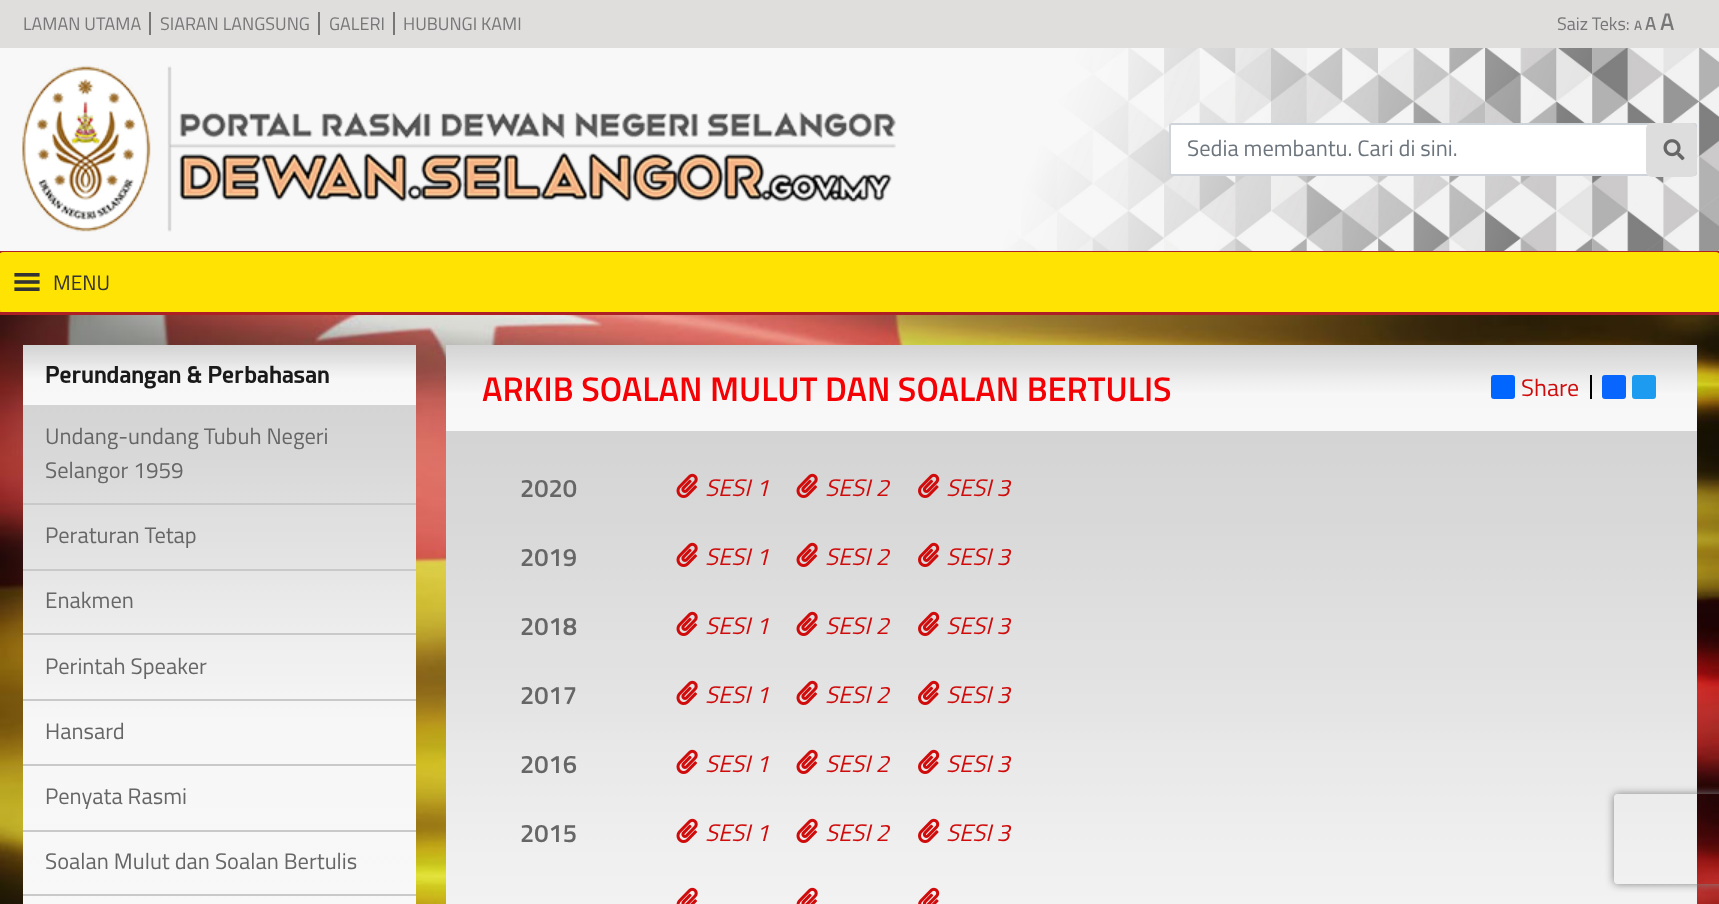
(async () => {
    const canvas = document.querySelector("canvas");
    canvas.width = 1719;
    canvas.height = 904;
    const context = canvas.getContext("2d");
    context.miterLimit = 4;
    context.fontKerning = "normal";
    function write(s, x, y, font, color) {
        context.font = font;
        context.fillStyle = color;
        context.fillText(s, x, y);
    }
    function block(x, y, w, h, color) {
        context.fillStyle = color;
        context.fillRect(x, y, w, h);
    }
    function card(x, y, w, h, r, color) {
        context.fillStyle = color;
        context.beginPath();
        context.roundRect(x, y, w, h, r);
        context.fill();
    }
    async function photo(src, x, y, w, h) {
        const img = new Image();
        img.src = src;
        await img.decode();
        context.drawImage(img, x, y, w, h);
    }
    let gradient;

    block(0, 0, 1719, 904, "rgb(224, 221, 221)");
    write("LAMAN UTAMA", 23, 30, "18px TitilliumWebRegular", "rgb(119, 119, 119)");
    block(149, 12, 2, 23, "rgb(119, 119, 119)");
    write("SIARAN LANGSUNG", 160, 30, "18px TitilliumWebRegular", "rgb(119, 119, 119)");
    block(318, 12, 2, 23, "rgb(119, 119, 119)");
    write("GALERI", 329, 30, "18px TitilliumWebRegular", "rgb(119, 119, 119)");
    block(393, 12, 2, 23, "rgb(119, 119, 119)");
    write("HUBUNGI KAMI", 403, 30, "18px TitilliumWebRegular", "rgb(119, 119, 119)");
    write("Saiz Teks:", 1557, 30, "18px TitilliumWebRegular", "rgb(119, 119, 119)");
    write("A", 1634, 30, "bold 13px TitilliumWebRegular", "rgb(119, 119, 119)");
    write("A", 1645, 30, "bold 18px TitilliumWebRegular", "rgb(119, 119, 119)");
    write("A", 1660, 30, "bold 23px TitilliumWebRegular", "rgb(119, 119, 119)");
    block(0, 48, 860, 203, "rgb(248, 248, 248)");
    await photo("media/1.png", 859, 48, 860, 203);
    await photo("media/2.png", 22, 65, 874, 167);
    block(1171, 125, 477, 49, "rgb(255, 255, 255)");
    context.beginPath();
    context.roundRect(1170, 124, 526, 51, 2);
    context.strokeStyle = "rgb(206, 212, 218)";
    context.lineWidth = 2;
    context.stroke();
    write("Sedia membantu. Cari di sini.", 1187, 156, "22.5px TitilliumWebRegular", "rgb(108, 117, 125)");
    card(1646, 123, 51, 54, 6, "rgb(221, 221, 221)");
    await photo("media/3.png", 1663, 139, 22, 22);
    gradient = context.createLinearGradient(860, 252, 860, 312);
    gradient.addColorStop(0, "rgb(255, 205, 4)");
    gradient.addColorStop(0.08, "rgb(254, 202, 5)");
    gradient.addColorStop(0.1, "rgb(251, 195, 10)");
    gradient.addColorStop(0.12, "rgb(248, 187, 19)");
    gradient.addColorStop(0.13, "rgb(245, 178, 27)");
    gradient.addColorStop(0.42, "rgb(248, 185, 22)");
    gradient.addColorStop(0.46, "rgb(248, 185, 18)");
    gradient.addColorStop(0.51, "rgb(250, 188, 19)");
    gradient.addColorStop(1, "rgb(255, 197, 10)");
    context.fillStyle = gradient;
    context.fillRect(0, 253, 1719, 59);
    block(0, 251, 1719, 2, "rgb(172, 31, 36)");
    block(0, 312, 1719, 3, "rgb(172, 31, 36)");
    card(0, 252, 1719, 60, 3, "rgb(255, 228, 3)");
    await photo("media/4.png", 14, 273, 26, 18);
    write("MENU", 53, 290, "21px TitilliumWebRegular", "rgb(51, 51, 51)");
    await photo("media/5.png", 0, 315, 1719, 589);
    gradient = context.createLinearGradient(219, 345, 219, 405);
    gradient.addColorStop(0, "rgb(212, 212, 212)");
    gradient.addColorStop(0.03, "rgb(213, 213, 213)");
    gradient.addColorStop(0.06, "rgb(215, 215, 215)");
    gradient.addColorStop(0.09, "rgb(216, 216, 216)");
    gradient.addColorStop(0.12, "rgb(218, 218, 218)");
    gradient.addColorStop(0.15, "rgb(220, 220, 220)");
    gradient.addColorStop(0.18, "rgb(222, 222, 222)");
    gradient.addColorStop(0.21, "rgb(224, 224, 224)");
    gradient.addColorStop(0.24, "rgb(225, 225, 225)");
    gradient.addColorStop(0.27, "rgb(227, 227, 227)");
    gradient.addColorStop(0.3, "rgb(229, 229, 229)");
    gradient.addColorStop(0.33, "rgb(232, 232, 232)");
    gradient.addColorStop(0.36, "rgb(234, 234, 234)");
    gradient.addColorStop(0.39, "rgb(236, 236, 236)");
    gradient.addColorStop(0.42, "rgb(238, 238, 238)");
    gradient.addColorStop(0.45, "rgb(240, 240, 240)");
    gradient.addColorStop(0.48, "rgb(241, 241, 241)");
    gradient.addColorStop(0.51, "rgb(243, 243, 243)");
    gradient.addColorStop(0.54, "rgb(245, 245, 245)");
    gradient.addColorStop(0.57, "rgb(247, 247, 247)");
    gradient.addColorStop(1, "rgb(248, 248, 248)");
    context.fillStyle = gradient;
    context.fillRect(23, 345, 393, 60);
    write("Perundangan & Perbahasan", 45, 383, "bold 22.75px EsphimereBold", "rgb(26, 26, 26)");
    gradient = context.createLinearGradient(219, 405, 219, 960);
    gradient.addColorStop(0, "rgb(212, 212, 212)");
    gradient.addColorStop(0.03, "rgb(213, 213, 213)");
    gradient.addColorStop(0.06, "rgb(215, 215, 215)");
    gradient.addColorStop(0.09, "rgb(216, 216, 216)");
    gradient.addColorStop(0.12, "rgb(218, 218, 218)");
    gradient.addColorStop(0.15, "rgb(220, 220, 220)");
    gradient.addColorStop(0.18, "rgb(222, 222, 222)");
    gradient.addColorStop(0.21, "rgb(224, 224, 224)");
    gradient.addColorStop(0.24, "rgb(225, 225, 225)");
    gradient.addColorStop(0.27, "rgb(227, 227, 227)");
    gradient.addColorStop(0.3, "rgb(229, 229, 229)");
    gradient.addColorStop(0.33, "rgb(232, 232, 232)");
    gradient.addColorStop(0.36, "rgb(234, 234, 234)");
    gradient.addColorStop(0.39, "rgb(236, 236, 236)");
    gradient.addColorStop(0.42, "rgb(238, 238, 238)");
    gradient.addColorStop(0.45, "rgb(240, 240, 240)");
    gradient.addColorStop(0.48, "rgb(241, 241, 241)");
    gradient.addColorStop(0.51, "rgb(243, 243, 243)");
    gradient.addColorStop(0.54, "rgb(245, 245, 245)");
    gradient.addColorStop(0.57, "rgb(247, 247, 247)");
    gradient.addColorStop(1, "rgb(248, 248, 248)");
    context.fillStyle = gradient;
    context.fillRect(23, 405, 393, 499);
    block(23, 503, 393, 2, "rgb(201, 201, 201)");
    write("Undang-undang Tubuh Negeri", 45, 444, "22.5px TitilliumWebRegular", "rgb(102, 102, 102)");
    write("Selangor 1959", 45, 478, "22.5px TitilliumWebRegular", "rgb(102, 102, 102)");
    block(23, 569, 393, 2, "rgb(201, 201, 201)");
    write("Peraturan Tetap", 45, 543, "22.5px TitilliumWebRegular", "rgb(102, 102, 102)");
    block(23, 633, 393, 2, "rgb(201, 201, 201)");
    write("Enakmen", 45, 608, "22.5px TitilliumWebRegular", "rgb(102, 102, 102)");
    block(23, 699, 393, 2, "rgb(201, 201, 201)");
    write("Perintah Speaker", 45, 674, "22.5px TitilliumWebRegular", "rgb(102, 102, 102)");
    block(23, 764, 393, 2, "rgb(201, 201, 201)");
    write("Hansard", 45, 739, "22.5px TitilliumWebRegular", "rgb(102, 102, 102)");
    block(23, 830, 393, 2, "rgb(201, 201, 201)");
    write("Penyata Rasmi", 45, 804, "22.5px TitilliumWebRegular", "rgb(102, 102, 102)");
    block(23, 894, 393, 2, "rgb(201, 201, 201)");
    write("Soalan Mulut dan Soalan Bertulis", 45, 869, "22.5px TitilliumWebRegular", "rgb(102, 102, 102)");
    gradient = context.createLinearGradient(1071, 345, 1071, 431);
    gradient.addColorStop(0, "rgb(212, 212, 212)");
    gradient.addColorStop(0.03, "rgb(213, 213, 213)");
    gradient.addColorStop(0.06, "rgb(215, 215, 215)");
    gradient.addColorStop(0.09, "rgb(216, 216, 216)");
    gradient.addColorStop(0.12, "rgb(218, 218, 218)");
    gradient.addColorStop(0.15, "rgb(220, 220, 220)");
    gradient.addColorStop(0.18, "rgb(222, 222, 222)");
    gradient.addColorStop(0.21, "rgb(224, 224, 224)");
    gradient.addColorStop(0.24, "rgb(225, 225, 225)");
    gradient.addColorStop(0.27, "rgb(227, 227, 227)");
    gradient.addColorStop(0.3, "rgb(229, 229, 229)");
    gradient.addColorStop(0.33, "rgb(232, 232, 232)");
    gradient.addColorStop(0.36, "rgb(234, 234, 234)");
    gradient.addColorStop(0.39, "rgb(236, 236, 236)");
    gradient.addColorStop(0.42, "rgb(238, 238, 238)");
    gradient.addColorStop(0.45, "rgb(240, 240, 240)");
    gradient.addColorStop(0.48, "rgb(241, 241, 241)");
    gradient.addColorStop(0.51, "rgb(243, 243, 243)");
    gradient.addColorStop(0.54, "rgb(245, 245, 245)");
    gradient.addColorStop(0.57, "rgb(247, 247, 247)");
    gradient.addColorStop(1, "rgb(248, 248, 248)");
    context.fillStyle = gradient;
    context.fillRect(446, 345, 1251, 86);
    write("ARKIB SOALAN MULUT DAN SOALAN BERTULIS", 482, 401, "600 34.2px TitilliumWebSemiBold", "rgb(243, 1, 4)");
    card(1491, 375, 24, 24, 3, "rgb(1, 102, 255)");
    write("Share", 1521, 396, "24px TitilliumWebRegular", "rgb(208, 11, 11)");
    block(1590, 375, 2, 24, "rgb(0, 0, 0)");
    card(1602, 375, 24, 24, 3, "rgb(8, 102, 255)");
    card(1632, 375, 24, 24, 3, "rgb(29, 155, 240)");
    gradient = context.createLinearGradient(1071, 430, 1071, 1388);
    gradient.addColorStop(0, "rgb(212, 212, 212)");
    gradient.addColorStop(0.03, "rgb(213, 213, 213)");
    gradient.addColorStop(0.06, "rgb(215, 215, 215)");
    gradient.addColorStop(0.09, "rgb(216, 216, 216)");
    gradient.addColorStop(0.12, "rgb(218, 218, 218)");
    gradient.addColorStop(0.15, "rgb(220, 220, 220)");
    gradient.addColorStop(0.18, "rgb(222, 222, 222)");
    gradient.addColorStop(0.21, "rgb(224, 224, 224)");
    gradient.addColorStop(0.24, "rgb(225, 225, 225)");
    gradient.addColorStop(0.27, "rgb(227, 227, 227)");
    gradient.addColorStop(0.3, "rgb(229, 229, 229)");
    gradient.addColorStop(0.33, "rgb(232, 232, 232)");
    gradient.addColorStop(0.36, "rgb(234, 234, 234)");
    gradient.addColorStop(0.39, "rgb(236, 236, 236)");
    gradient.addColorStop(0.42, "rgb(238, 238, 238)");
    gradient.addColorStop(0.45, "rgb(240, 240, 240)");
    gradient.addColorStop(0.48, "rgb(241, 241, 241)");
    gradient.addColorStop(0.51, "rgb(243, 243, 243)");
    gradient.addColorStop(0.54, "rgb(245, 245, 245)");
    gradient.addColorStop(0.57, "rgb(247, 247, 247)");
    gradient.addColorStop(1, "rgb(248, 248, 248)");
    context.fillStyle = gradient;
    context.fillRect(446, 431, 1251, 473);
    write("2020", 520, 497, "600 25.5px TitilliumWebSemiBold", "rgb(102, 102, 102)");
    await photo("media/6.png", 676, 473, 22, 25);
    write("SESI 1", 705, 496, "italic 24px TitilliumWebRegular", "rgb(208, 11, 11)");
    await photo("media/6.png", 796, 473, 22, 25);
    write("SESI 2", 825, 496, "italic 24px TitilliumWebRegular", "rgb(208, 11, 11)");
    await photo("media/7.png", 918, 473, 22, 25);
    write("SESI 3", 946, 496, "italic 24px TitilliumWebRegular", "rgb(208, 11, 11)");
    write("2019", 520, 566, "600 25.5px TitilliumWebSemiBold", "rgb(102, 102, 102)");
    await photo("media/8.png", 676, 542, 22, 25);
    write("SESI 1", 705, 565, "italic 24px TitilliumWebRegular", "rgb(208, 11, 11)");
    await photo("media/8.png", 796, 542, 22, 25);
    write("SESI 2", 825, 565, "italic 24px TitilliumWebRegular", "rgb(208, 11, 11)");
    await photo("media/9.png", 918, 542, 22, 25);
    write("SESI 3", 946, 565, "italic 24px TitilliumWebRegular", "rgb(208, 11, 11)");
    write("2018", 520, 635, "600 25.5px TitilliumWebSemiBold", "rgb(102, 102, 102)");
    await photo("media/10.png", 676, 611, 22, 25);
    write("SESI 1", 705, 634, "italic 24px TitilliumWebRegular", "rgb(208, 11, 11)");
    await photo("media/10.png", 796, 611, 22, 25);
    write("SESI 2", 825, 634, "italic 24px TitilliumWebRegular", "rgb(208, 11, 11)");
    await photo("media/11.png", 918, 611, 22, 25);
    write("SESI 3", 946, 634, "italic 24px TitilliumWebRegular", "rgb(208, 11, 11)");
    write("2017", 520, 704, "600 25.5px TitilliumWebSemiBold", "rgb(102, 102, 102)");
    await photo("media/12.png", 676, 680, 22, 25);
    write("SESI 1", 705, 703, "italic 24px TitilliumWebRegular", "rgb(208, 11, 11)");
    await photo("media/12.png", 796, 680, 22, 25);
    write("SESI 2", 825, 703, "italic 24px TitilliumWebRegular", "rgb(208, 11, 11)");
    await photo("media/13.png", 918, 680, 22, 25);
    write("SESI 3", 946, 703, "italic 24px TitilliumWebRegular", "rgb(208, 11, 11)");
    write("2016", 520, 773, "600 25.5px TitilliumWebSemiBold", "rgb(102, 102, 102)");
    await photo("media/14.png", 676, 749, 22, 25);
    write("SESI 1", 705, 772, "italic 24px TitilliumWebRegular", "rgb(208, 11, 11)");
    await photo("media/14.png", 796, 749, 22, 25);
    write("SESI 2", 825, 772, "italic 24px TitilliumWebRegular", "rgb(208, 11, 11)");
    await photo("media/15.png", 918, 749, 22, 25);
    write("SESI 3", 946, 772, "italic 24px TitilliumWebRegular", "rgb(208, 11, 11)");
    write("2015", 520, 842, "600 25.5px TitilliumWebSemiBold", "rgb(102, 102, 102)");
    await photo("media/16.png", 676, 818, 22, 25);
    write("SESI 1", 705, 841, "italic 24px TitilliumWebRegular", "rgb(208, 11, 11)");
    await photo("media/16.png", 796, 818, 22, 25);
    write("SESI 2", 825, 841, "italic 24px TitilliumWebRegular", "rgb(208, 11, 11)");
    await photo("media/17.png", 918, 818, 22, 25);
    write("SESI 3", 946, 841, "italic 24px TitilliumWebRegular", "rgb(208, 11, 11)");
    await photo("media/18.png", 676, 887, 22, 17);
    await photo("media/18.png", 796, 887, 22, 17);
    await photo("media/19.png", 918, 887, 22, 17);
    context.save();
    context.beginPath();
    context.moveTo(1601, 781);
    context.lineTo(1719, 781);
    context.lineTo(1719, 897);
    context.lineTo(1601, 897);
    context.closePath();
    context.moveTo(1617, 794);
    context.lineTo(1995, 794);
    context.bezierCurveTo(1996.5, 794, 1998, 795.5, 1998, 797);
    context.lineTo(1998, 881);
    context.bezierCurveTo(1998, 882.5, 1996.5, 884, 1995, 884);
    context.lineTo(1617, 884);
    context.bezierCurveTo(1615.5, 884, 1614, 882.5, 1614, 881);
    context.lineTo(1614, 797);
    context.bezierCurveTo(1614, 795.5, 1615.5, 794, 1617, 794);
    context.closePath();
    context.clip("evenodd");
    context.fillStyle = "rgb(128, 128, 128)";
    context.filter = "blur(4px)";
    context.beginPath();
    context.roundRect(1614, 794, 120, 90, 3);
    context.fill();
    context.filter = "none";
    context.restore();
})();
